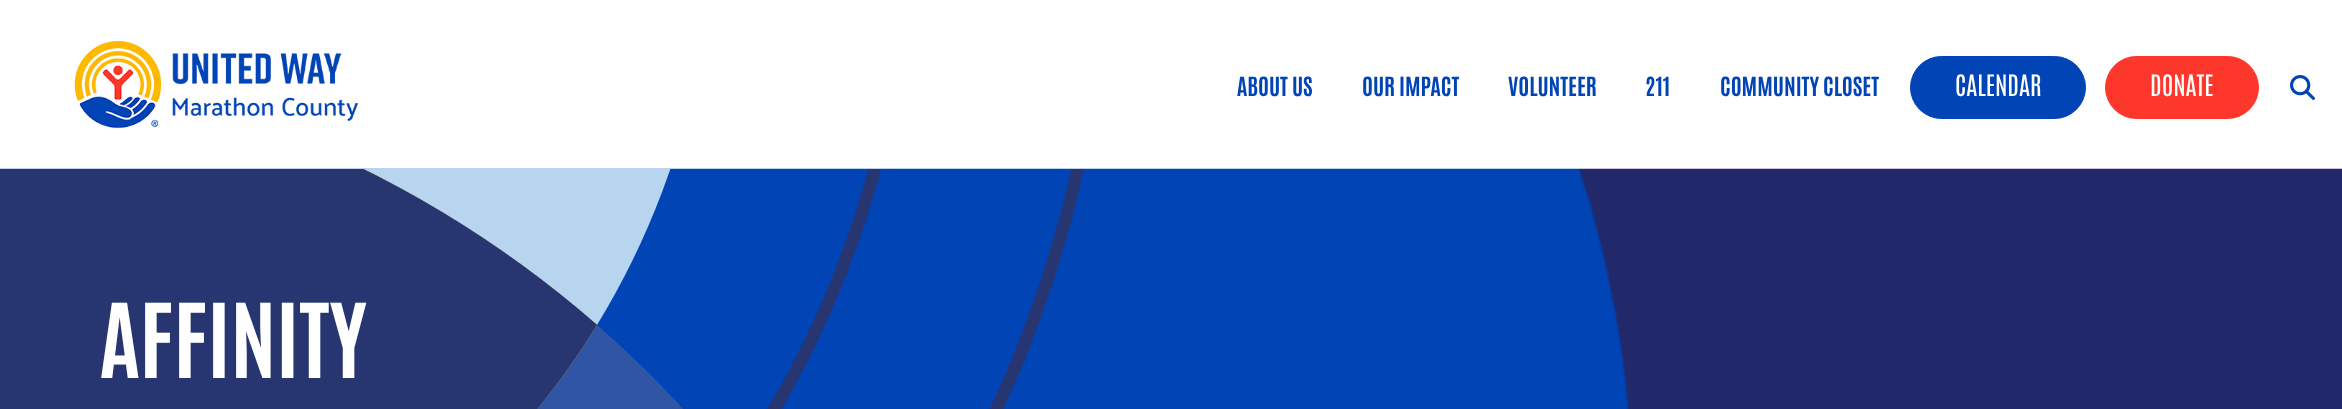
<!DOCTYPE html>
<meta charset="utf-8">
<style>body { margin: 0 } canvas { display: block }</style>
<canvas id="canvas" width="2342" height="409"></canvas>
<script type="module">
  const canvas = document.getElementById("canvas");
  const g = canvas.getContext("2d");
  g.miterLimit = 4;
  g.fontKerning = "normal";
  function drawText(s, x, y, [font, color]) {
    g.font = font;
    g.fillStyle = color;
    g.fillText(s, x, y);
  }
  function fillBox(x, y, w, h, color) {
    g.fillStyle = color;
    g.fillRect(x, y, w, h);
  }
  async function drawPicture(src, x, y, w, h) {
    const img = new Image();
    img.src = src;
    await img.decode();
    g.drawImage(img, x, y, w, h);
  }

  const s1 = ["bold 22.5px Antonio", "#0044B5"];
  const s2 = ["25px Antonio", "#FFFFFF"];
  const s3 = ["bold 87.5px Antonio", "#FFFFFF"];

  fillBox(0, 0, 2342, 409, "#FFFFFF");
  await drawPicture("pic1.png", 74, 40, 284, 89);
  drawText("ABOUT US", 1237, 96, s1);
  drawText("OUR IMPACT", 1362, 96, s1);
  drawText("VOLUNTEER", 1508, 96, s1);
  drawText("211", 1645, 96, s1);
  drawText("COMMUNITY CLOSET", 1720, 96, s1);
  g.beginPath();
  g.roundRect(1910.5, 56.5, 175, 62, 31);
  g.fill();
  g.strokeStyle = "#0044B5";
  g.stroke();
  drawText("CALENDAR", 1955, 96, s2);
  g.fillStyle = "#FD372C";
  g.beginPath();
  g.roundRect(2105.5, 56.5, 153, 62, 31);
  g.fill();
  g.strokeStyle = "#FD372C";
  g.stroke();
  drawText("DONATE", 2150, 96, s2);
  await drawPicture("pic2.png", 2290, 75, 25, 25);
  await drawPicture("pic3.png", 0, 168, 2342, 241);
  await drawPicture("pic4.png", 0, 169, 1084, 240);
  drawText("AFFINITY", 100, 378, s3);
</script>
